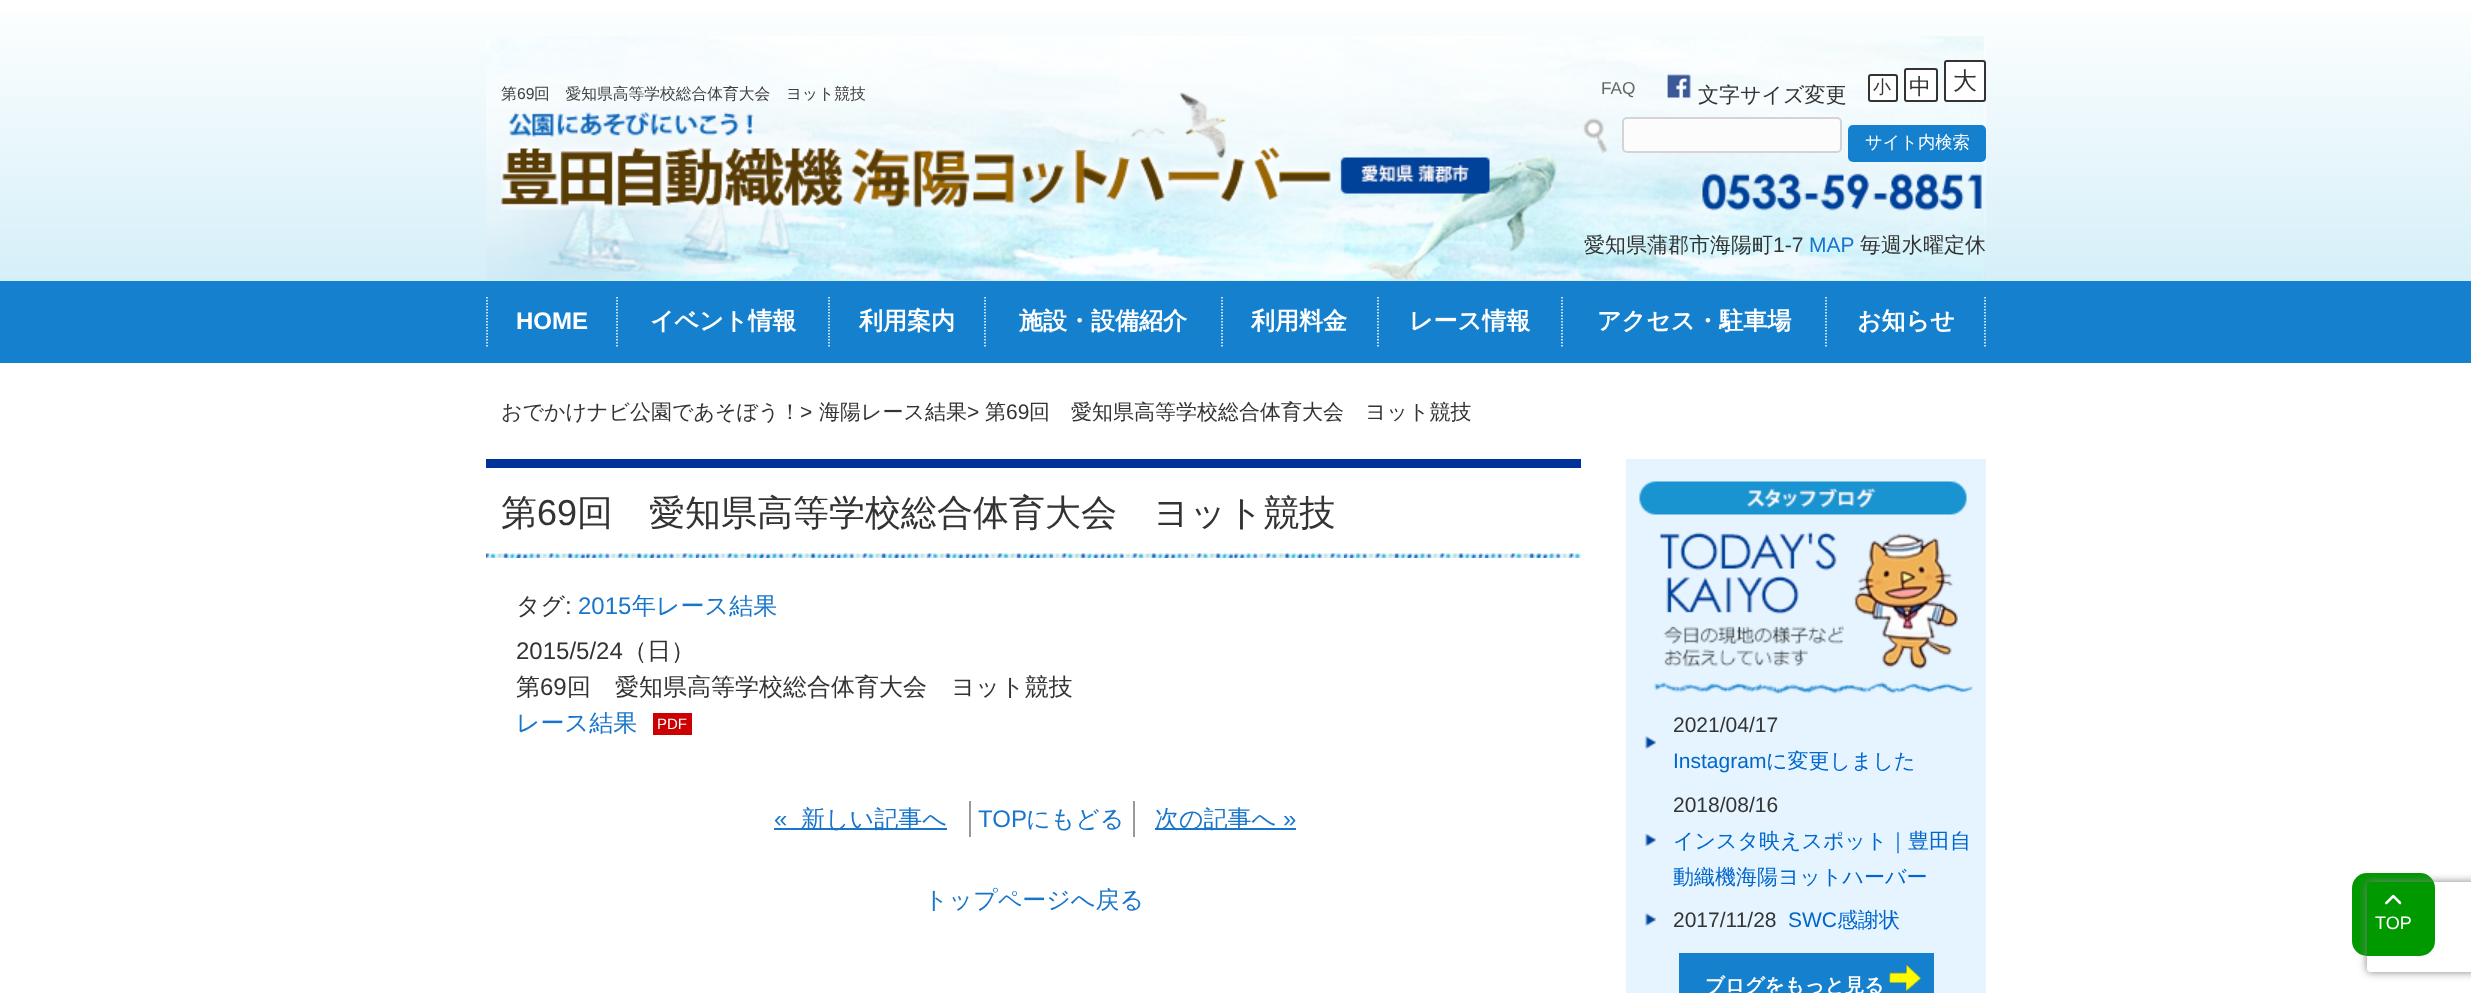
<!DOCTYPE html>
<meta charset="utf-8">
<style>body { margin: 0 } canvas { display: block }</style>
<canvas id="canvas" width="2471" height="993"></canvas>
<script type="module">
  const canvas = document.getElementById("canvas");
  const g = canvas.getContext("2d");
  g.miterLimit = 4;
  g.fontKerning = "normal";
  function drawText(s, x, y, [font, color]) {
    g.font = font;
    g.fillStyle = color;
    g.fillText(s, x, y);
  }
  function fillBox(x, y, w, h, color) {
    g.fillStyle = color;
    g.fillRect(x, y, w, h);
  }
  function fillRounded(x, y, w, h, r, color) {
    g.fillStyle = color;
    g.beginPath();
    g.roundRect(x, y, w, h, r);
    g.fill();
  }
  async function drawPicture(src, x, y, w, h) {
    const img = new Image();
    img.src = src;
    await img.decode();
    g.drawImage(img, x, y, w, h);
  }
  let gradient;

  const s1 = ["500 15.75px WenQuanYi Zen Hei", "#404040"];
  const s2 = ["15.75px Liberation Sans", "#404040"];
  const s3 = ["17.25px Liberation Sans", "#626861"];
  const s4 = ["500 21px WenQuanYi Zen Hei", "#333333"];
  const s5 = ["500 18px WenQuanYi Zen Hei", "#333333"];
  const s6 = ["500 22px WenQuanYi Zen Hei", "#333333"];
  const s7 = ["500 24px WenQuanYi Zen Hei", "#333333"];
  const s8 = ["500 17.25px WenQuanYi Zen Hei", "#FFFFFF"];
  const s9 = ["21px Liberation Sans", "#333333"];
  const s10 = ["21px Liberation Sans", "#1975CA"];
  const s11 = ["bold 24px Liberation Sans", "#FFFFFF"];
  const s12 = ["bold 24px WenQuanYi Zen Hei", "#FFFFFF"];
  const s13 = ["500 36px WenQuanYi Zen Hei", "#333333"];
  const s14 = ["36px Liberation Sans", "#333333"];
  const s15 = ["24px Liberation Sans", "#333333"];
  const s16 = ["24px Liberation Sans", "#1975CA"];
  const s17 = ["500 24px WenQuanYi Zen Hei", "#1975CA"];
  const s18 = ["15px Liberation Sans", "#FFFFFF"];
  const s19 = ["21px Liberation Sans", "#0066CC"];
  const s20 = ["500 21px WenQuanYi Zen Hei", "#0066CC"];
  const s21 = ["bold 19.5px WenQuanYi Zen Hei", "#FFFFFF"];
  const s22 = ["18px Liberation Sans", "#FFFFFF"];

  fillBox(0, 0, 2471, 993, "#FFFFFF");
  gradient = g.createLinearGradient(1236, 0, 1236, 281);
  gradient.addColorStop(0, "#FEFFFF");
  gradient.addColorStop(1, "#D5EFF8");
  g.fillStyle = gradient;
  g.fillRect(0, 10, 2471, 271);
  await drawPicture("pic1.png", 486, 36, 1500, 245);
  drawText("第", 501, 99, s1);
  drawText("69", 517, 99, s2);
  drawText("回　愛知県高等学校総合体育大会　ヨット競技", 534, 99, s1);
  await drawPicture("pic2.png", 501, 112, 989, 98);
  drawText("FAQ", 1601, 94, s3);
  await drawPicture("pic3.png", 1667, 74, 24, 24);
  drawText("文字サイズ変更", 1698, 102, s4);
  g.fillStyle = "#FFFFFF";
  g.beginPath();
  g.roundRect(1869, 75, 28, 26, 2);
  g.fill();
  g.strokeStyle = "#333333";
  g.lineWidth = 2;
  g.stroke();
  drawText("小", 1873, 93, s5);
  g.fillStyle = "#FFFFFF";
  g.beginPath();
  g.roundRect(1905, 69, 32, 32, 2);
  g.fill();
  g.stroke();
  drawText("中", 1909, 94, s6);
  g.fillStyle = "#FFFFFF";
  g.beginPath();
  g.roundRect(1945, 61, 40, 40, 2);
  g.fill();
  g.stroke();
  drawText("大", 1953, 89, s7);
  await drawPicture("pic4.png", 1583, 118, 24, 35);
  g.fillStyle = "#FCFCFC";
  g.beginPath();
  g.roundRect(1623, 118, 218, 34, 4);
  g.fill();
  g.strokeStyle = "#D4D4D7";
  g.stroke();
  fillRounded(1848, 125, 138, 37, 5, "#1581CE");
  drawText("サイト内検索", 1865, 148, s8);
  await drawPicture("pic5.png", 1702, 173, 280, 38);
  drawText("愛知県蒲郡市海陽町", 1584, 252, s4);
  drawText("1-7", 1773, 252, s9);
  drawText("MAP", 1809, 252, s10);
  drawText("毎週水曜定休", 1860, 252, s4);
  fillBox(0, 281, 2471, 82, "#1581CE");
  g.beginPath();
  g.moveTo(487, 297);
  g.lineTo(487, 348);
  g.strokeStyle = "#FFFFFF";
  g.lineWidth = 1.5;
  g.setLineDash([1.5, 1.5]);
  g.stroke();
  drawText("HOME", 516, 329, s11);
  g.beginPath();
  g.moveTo(617, 297);
  g.lineTo(617, 348);
  g.stroke();
  drawText("イベント情報", 650, 329, s12);
  g.beginPath();
  g.moveTo(829, 297);
  g.lineTo(829, 348);
  g.stroke();
  drawText("利用案内", 859, 329, s12);
  g.beginPath();
  g.moveTo(985, 297);
  g.lineTo(985, 348);
  g.stroke();
  drawText("施設・設備紹介", 1019, 329, s12);
  g.beginPath();
  g.moveTo(1222, 297);
  g.lineTo(1222, 348);
  g.stroke();
  drawText("利用料金", 1251, 329, s12);
  g.beginPath();
  g.moveTo(1378, 297);
  g.lineTo(1378, 348);
  g.stroke();
  drawText("レース情報", 1409, 329, s12);
  g.beginPath();
  g.moveTo(1562, 297);
  g.lineTo(1562, 348);
  g.stroke();
  drawText("アクセス・駐車場", 1597, 329, s12);
  g.beginPath();
  g.moveTo(1985, 297);
  g.lineTo(1985, 348);
  g.stroke();
  g.beginPath();
  g.moveTo(1826, 297);
  g.lineTo(1826, 348);
  g.stroke();
  drawText("お知らせ", 1857, 329, s12);
  drawText("おでかけナビ公園であそぼう！", 501, 419, s4);
  drawText(">", 800, 419, s9);
  drawText("海陽レース結果", 819, 419, s4);
  drawText(">", 967, 419, s9);
  drawText("第", 985, 419, s4);
  drawText("69", 1006, 419, s9);
  drawText("回　愛知県高等学校総合体育大会　ヨット競技", 1029, 419, s4);
  await drawPicture("pic6.png", 486, 553, 1095, 5);
  fillBox(486, 459, 1095, 9, "#003399");
  drawText("第", 501, 525, s13);
  drawText("69", 537, 525, s14);
  drawText("回　愛知県高等学校総合体育大会　ヨット競技", 577, 525, s13);
  drawText("タグ", 516, 614, s7);
  drawText(":", 565, 614, s15);
  drawText("2015", 578, 614, s16);
  drawText("年レース結果", 632, 614, s17);
  drawText("2015/5/24", 516, 659, s15);
  drawText("（日）", 623, 659, s7);
  drawText("第", 516, 695, s7);
  drawText("69", 540, 695, s15);
  drawText("回　愛知県高等学校総合体育大会　ヨット競技", 567, 695, s7);
  drawText("レース結果", 516, 731, s17);
  fillBox(653, 713, 39, 22, "#CC0000");
  drawText("PDF", 657, 729, s18);
  drawText("«", 774, 827, s16);
  fillBox(774, 828, 173, 2, "#1975CA");
  drawText("新しい記事へ", 801, 827, s17);
  fillBox(1133, 801, 2, 36, "#999999");
  fillBox(969, 801, 2, 36, "#999999");
  drawText("TOP", 978, 827, s16);
  drawText("にもどる", 1026, 827, s17);
  fillBox(1155, 828, 141, 2, "#1975CA");
  drawText("次の記事へ", 1155, 827, s17);
  drawText("»", 1283, 827, s16);
  drawText("トップページへ戻る", 924, 908, s17);
  fillBox(1626, 459, 360, 534, "#E5F4FF");
  await drawPicture("pic7.png", 1639, 481, 334, 213);
  await drawPicture("pic8.png", 1645, 736, 11, 13);
  drawText("2021/04/17", 1673, 732, s9);
  drawText("Instagram", 1673, 768, s19);
  drawText("に変更しました", 1766, 768, s20);
  await drawPicture("pic9.png", 1645, 834, 11, 12);
  drawText("2018/08/16", 1673, 812, s9);
  drawText("インスタ映えスポット｜豊田自", 1673, 848, s20);
  drawText("動織機海陽ヨットハーバー", 1673, 884, s20);
  await drawPicture("pic8.png", 1645, 913, 11, 13);
  drawText("2017/11/28", 1673, 927, s9);
  drawText("SWC", 1788, 927, s19);
  drawText("感謝状", 1837, 927, s20);
  fillBox(1679, 953, 255, 40, "#1581CE");
  await drawPicture("pic10.png", 1889, 964, 32, 28);
  drawText("ブログをもっと見る", 1705, 992, s21);
  fillRounded(2352, 873, 83, 83, 15, "#009900");
  await drawPicture("pic11.png", 2385, 894, 17, 11);
  g.save();
  g.beginPath();
  g.moveTo(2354, 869);
  g.lineTo(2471, 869);
  g.lineTo(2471, 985);
  g.lineTo(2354, 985);
  g.closePath();
  g.moveTo(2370, 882);
  g.lineTo(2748, 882);
  g.bezierCurveTo(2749.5, 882, 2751, 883.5, 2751, 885);
  g.lineTo(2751, 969);
  g.bezierCurveTo(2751, 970.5, 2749.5, 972, 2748, 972);
  g.lineTo(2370, 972);
  g.bezierCurveTo(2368.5, 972, 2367, 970.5, 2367, 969);
  g.lineTo(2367, 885);
  g.bezierCurveTo(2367, 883.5, 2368.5, 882, 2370, 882);
  g.closePath();
  g.clip("evenodd");
  g.fillStyle = "#808080";
  g.filter = "blur(4px)";
  g.beginPath();
  g.roundRect(2367, 882, 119, 90, 3);
  g.fill();
  g.filter = "none";
  g.restore();
  drawText("TOP", 2375, 929, s22);
</script>
